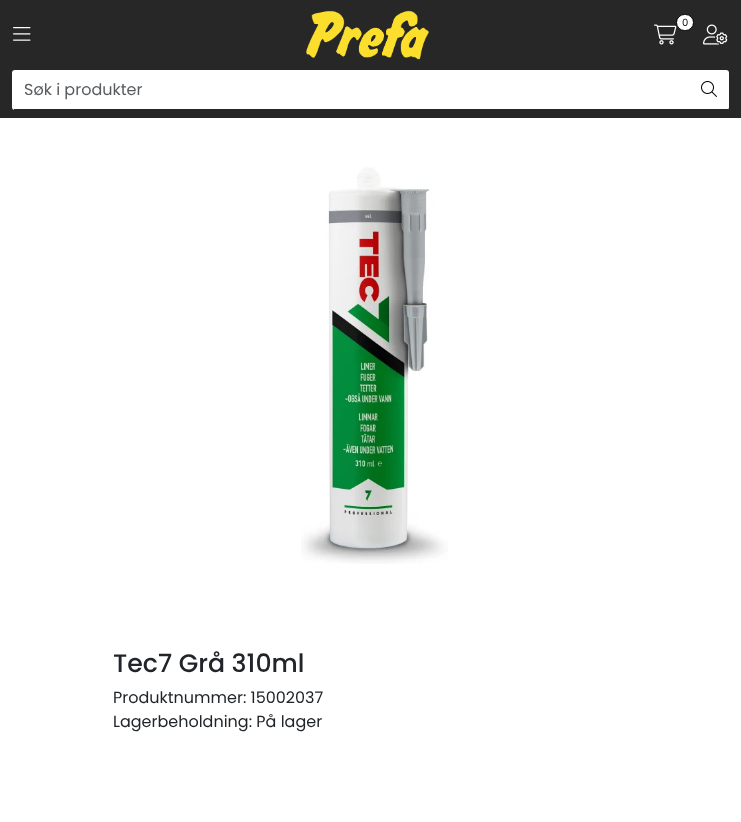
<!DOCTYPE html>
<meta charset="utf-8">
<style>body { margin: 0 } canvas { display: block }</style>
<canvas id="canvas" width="741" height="822"></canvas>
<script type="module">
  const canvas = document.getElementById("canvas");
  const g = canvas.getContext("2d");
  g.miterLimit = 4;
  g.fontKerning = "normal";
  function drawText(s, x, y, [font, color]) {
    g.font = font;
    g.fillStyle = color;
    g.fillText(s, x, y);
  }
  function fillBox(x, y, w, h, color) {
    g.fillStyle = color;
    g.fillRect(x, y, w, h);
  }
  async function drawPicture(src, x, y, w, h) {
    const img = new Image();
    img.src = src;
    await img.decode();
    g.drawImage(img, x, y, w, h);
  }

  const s1 = ["10px Poppins", "#000000"];
  const s2 = ["16px Poppins", "#595C5F"];
  const s3 = ["500 25.25px Poppins", "#212529"];
  const s4 = ["16px Poppins", "#212529"];

  fillBox(0, 0, 741, 822, "#FFFFFF");
  fillBox(0, 0, 741, 118, "#272727");
  await drawPicture("pic1.png", 306, 10, 123, 50);
  await drawPicture("pic2.png", 654, 24, 23, 21);
  g.fillStyle = "#FFFFFF";
  g.beginPath();
  g.roundRect(676.5, 14.5, 17, 16, 8);
  g.fill();
  g.strokeStyle = "#000000";
  g.stroke();
  drawText("0", 682, 26, s1);
  await drawPicture("pic3.png", 703, 24, 25, 21);
  await drawPicture("pic4.png", 13, 27, 18, 14);
  g.fillStyle = "#FFFFFF";
  g.beginPath();
  g.roundRect(12, 70, 678, 40, [3, 0, 0, 3]);
  g.fill();
  fillBox(14, 109, 676, 1, "#272727");
  drawText("Søk i produkter", 24, 95, s2);
  g.fillStyle = "#FFFFFF";
  g.beginPath();
  g.roundRect(689, 70, 40, 40, [0, 3, 3, 0]);
  g.fill();
  fillBox(689, 109, 39, 1, "#272727");
  await drawPicture("pic5.png", 701, 81, 16, 16);
  await drawPicture("pic6.png", 301, 167, 147, 397);
  drawText("Tec7 Grå 310ml", 113, 672, s3);
  drawText("Produktnummer: 15002037", 113, 703, s4);
  drawText("Lagerbeholdning: På lager", 113, 727, s4);
</script>
